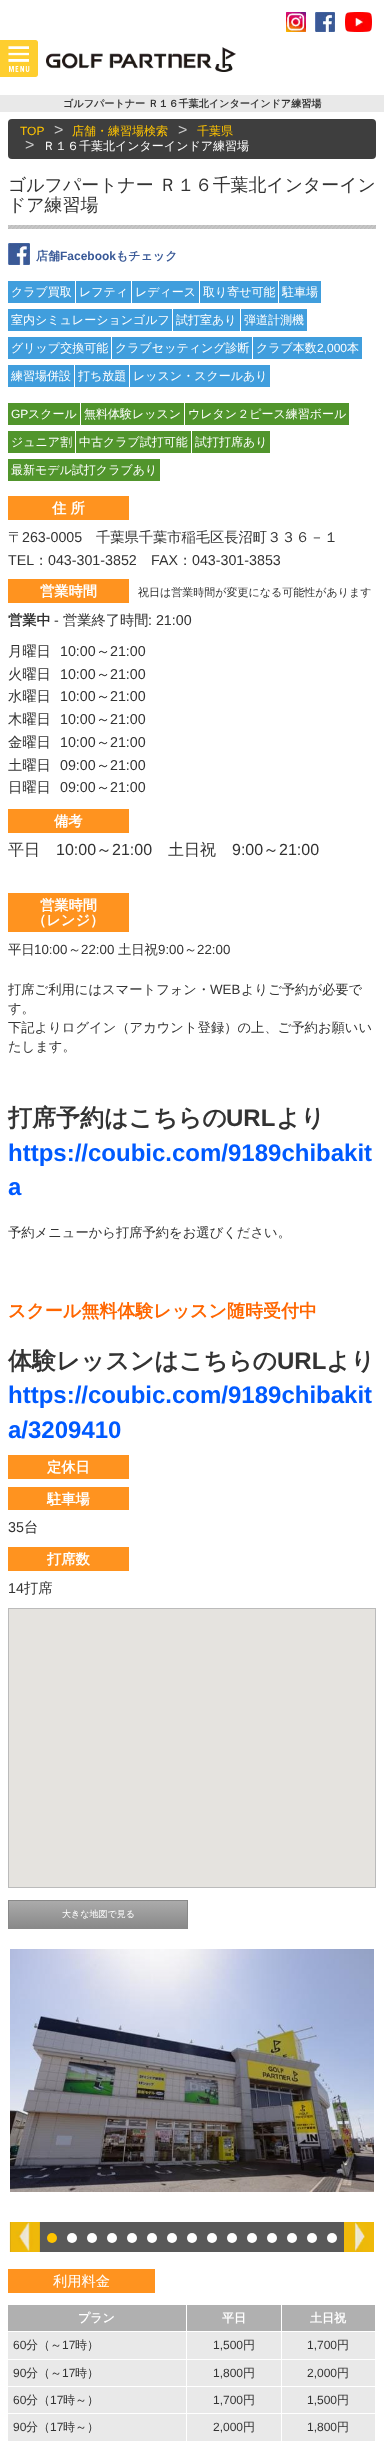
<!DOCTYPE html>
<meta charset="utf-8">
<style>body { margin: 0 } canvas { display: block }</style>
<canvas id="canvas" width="384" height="2449"></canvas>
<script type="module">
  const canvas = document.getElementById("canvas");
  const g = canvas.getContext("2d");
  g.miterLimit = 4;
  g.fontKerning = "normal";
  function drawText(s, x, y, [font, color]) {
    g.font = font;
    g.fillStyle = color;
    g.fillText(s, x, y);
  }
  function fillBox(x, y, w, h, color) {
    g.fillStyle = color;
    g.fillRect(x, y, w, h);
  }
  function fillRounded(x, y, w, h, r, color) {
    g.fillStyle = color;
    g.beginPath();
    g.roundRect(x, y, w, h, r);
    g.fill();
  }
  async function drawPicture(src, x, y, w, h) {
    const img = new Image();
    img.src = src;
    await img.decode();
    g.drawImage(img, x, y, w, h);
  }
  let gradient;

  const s1 = ["bold 10.1px WenQuanYi Zen Hei", "#333333"];
  const s2 = ["12px Liberation Sans", "#FFC400"];
  const s3 = ["16px Liberation Sans", "#CCCCCC"];
  const s4 = ["500 12px WenQuanYi Zen Hei", "#FFC400"];
  const s5 = ["500 12px WenQuanYi Zen Hei", "#FFFFFF"];
  const s6 = ["500 17.9px WenQuanYi Zen Hei", "#333333"];
  const s7 = ["bold 12px WenQuanYi Zen Hei", "#3A5A98"];
  const s8 = ["bold 12px Liberation Sans", "#3A5A98"];
  const s9 = ["12px Liberation Sans", "#FFFFFF"];
  const s10 = ["bold 14.25px WenQuanYi Zen Hei", "#FFFFFF"];
  const s11 = ["500 14.25px WenQuanYi Zen Hei", "#333333"];
  const s12 = ["14.25px Liberation Sans", "#333333"];
  const s13 = ["500 11px WenQuanYi Zen Hei", "#333333"];
  const s14 = ["bold 14.25px WenQuanYi Zen Hei", "#333333"];
  const s15 = ["500 16px WenQuanYi Zen Hei", "#333333"];
  const s16 = ["16px Liberation Sans", "#333333"];
  const s17 = ["500 13.3px WenQuanYi Zen Hei", "#333333"];
  const s18 = ["13.3px Liberation Sans", "#333333"];
  const s19 = ["bold 24px WenQuanYi Zen Hei", "#333333"];
  const s20 = ["bold 24px Liberation Sans", "#333333"];
  const s21 = ["bold 24px Liberation Sans", "#005AFF"];
  const s22 = ["bold 18px WenQuanYi Zen Hei", "#FF6600"];
  const s23 = ["500 9px WenQuanYi Zen Hei", "#FFFFFF"];
  const s24 = ["500 14.25px WenQuanYi Zen Hei", "#FFFFFF"];
  const s25 = ["bold 12px WenQuanYi Zen Hei", "#FFFFFF"];
  const s26 = ["12px Liberation Sans", "#333333"];
  const s27 = ["500 12px WenQuanYi Zen Hei", "#333333"];

  fillBox(0, 0, 384, 2449, "#FFFFFF");
  await drawPicture("pic1.png", 286, 12, 20, 20);
  await drawPicture("pic2.png", 315, 12, 20, 20);
  await drawPicture("pic3.png", 345, 12, 27, 20);
  await drawPicture("pic4.png", 0, 40, 38, 37);
  await drawPicture("pic5.png", 46, 47, 190, 25);
  fillBox(0, 95, 384, 17, "#E9E9E9");
  drawText("ゴルフパートナー Ｒ１６千葉北インターインドア練習場", 63, 107, s1);
  fillRounded(8, 119, 368, 40, 4, "#3E3E3E");
  drawText("TOP", 20, 135, s2);
  drawText(">", 54, 135, s3);
  drawText("店舗・練習場検索", 72, 135, s4);
  drawText(">", 178, 135, s3);
  drawText("千葉県", 197, 135, s4);
  drawText(">", 25, 150, s3);
  drawText("Ｒ１６千葉北インターインドア練習場", 43, 150, s5);
  await drawPicture("pic6.png", 8, 225, 368, 4);
  drawText("ゴルフパートナー Ｒ１６千葉北インターイン", 8, 191, s6);
  drawText("ドア練習場", 8, 211, s6);
  await drawPicture("pic7.png", 8, 243, 22, 22);
  drawText("店舗", 36, 260, s7);
  drawText("Facebook", 60, 260, s8);
  drawText("もチェック", 116, 260, s7);
  fillBox(8, 281, 67, 22, "#409EDD");
  drawText("クラブ買取", 11, 296, s5);
  fillBox(76, 281, 55, 22, "#409EDD");
  drawText("レフティ", 79, 296, s5);
  fillBox(132, 281, 67, 22, "#409EDD");
  drawText("レディース", 135, 296, s5);
  fillBox(200, 281, 78, 22, "#409EDD");
  drawText("取り寄せ可能", 203, 296, s5);
  fillBox(279, 281, 42, 22, "#409EDD");
  drawText("駐車場", 282, 296, s5);
  fillBox(8, 309, 164, 22, "#409EDD");
  drawText("室内シミュレーションゴルフ", 11, 324, s5);
  fillBox(173, 309, 67, 22, "#409EDD");
  drawText("試打室あり", 176, 324, s5);
  fillBox(241, 309, 66, 22, "#409EDD");
  drawText("弾道計測機", 244, 324, s5);
  fillBox(8, 337, 103, 22, "#409EDD");
  drawText("グリップ交換可能", 11, 352, s5);
  fillBox(112, 337, 140, 22, "#409EDD");
  drawText("クラブセッティング診断", 115, 352, s5);
  fillBox(253, 337, 109, 22, "#409EDD");
  drawText("クラブ本数", 256, 352, s5);
  drawText("2,000", 317, 352, s9);
  drawText("本", 347, 352, s5);
  fillBox(8, 365, 66, 22, "#409EDD");
  drawText("練習場併設", 11, 380, s5);
  fillBox(75, 365, 54, 22, "#409EDD");
  drawText("打ち放題", 78, 380, s5);
  fillBox(130, 365, 140, 22, "#409EDD");
  drawText("レッスン・スクールあり", 133, 380, s5);
  fillBox(8, 403, 72, 22, "#51952C");
  drawText("GP", 11, 418, s9);
  drawText("スクール", 28, 418, s5);
  fillBox(81, 403, 103, 22, "#51952C");
  drawText("無料体験レッスン", 84, 418, s5);
  fillBox(185, 403, 164, 22, "#51952C");
  drawText("ウレタン２ピース練習ボール", 188, 418, s5);
  fillBox(8, 431, 67, 22, "#51952C");
  drawText("ジュニア割", 11, 446, s5);
  fillBox(76, 431, 115, 22, "#51952C");
  drawText("中古クラブ試打可能", 79, 446, s5);
  fillBox(192, 431, 78, 22, "#51952C");
  drawText("試打打席あり", 195, 446, s5);
  fillBox(8, 459, 152, 22, "#51952C");
  drawText("最新モデル試打クラブあり", 11, 474, s5);
  fillBox(8, 496, 121, 24, "#FF931F");
  drawText("住 所", 52, 513, s10);
  drawText("〒", 8, 542, s11);
  drawText("263-0005", 22, 542, s12);
  drawText("千葉県千葉市稲毛区長沼町３３６－１", 96, 542, s11);
  drawText("TEL", 8, 565, s12);
  drawText("：", 34, 565, s11);
  drawText("043-301-3852", 48, 565, s12);
  drawText("FAX", 151, 565, s12);
  drawText("：", 178, 565, s11);
  drawText("043-301-3853", 192, 565, s12);
  fillBox(8, 579, 121, 24, "#FF931F");
  drawText("営業時間", 40, 596, s10);
  drawText("祝日は営業時間が変更になる可能性があります", 138, 596, s13);
  drawText("営業中", 8, 625, s14);
  drawText("-", 54, 625, s12);
  drawText("営業終了時間", 63, 625, s11);
  drawText(": 21:00", 148, 625, s12);
  drawText("月曜日", 8, 656, s11);
  drawText("10:00", 60, 656, s12);
  drawText("～", 96, 656, s11);
  drawText("21:00", 110, 656, s12);
  drawText("火曜日", 8, 679, s11);
  drawText("10:00", 60, 679, s12);
  drawText("～", 96, 679, s11);
  drawText("21:00", 110, 679, s12);
  drawText("水曜日", 8, 701, s11);
  drawText("10:00", 60, 701, s12);
  drawText("～", 96, 701, s11);
  drawText("21:00", 110, 701, s12);
  drawText("木曜日", 8, 724, s11);
  drawText("10:00", 60, 724, s12);
  drawText("～", 96, 724, s11);
  drawText("21:00", 110, 724, s12);
  drawText("金曜日", 8, 747, s11);
  drawText("10:00", 60, 747, s12);
  drawText("～", 96, 747, s11);
  drawText("21:00", 110, 747, s12);
  drawText("土曜日", 8, 770, s11);
  drawText("09:00", 60, 770, s12);
  drawText("～", 96, 770, s11);
  drawText("21:00", 110, 770, s12);
  drawText("日曜日", 8, 792, s11);
  drawText("09:00", 60, 792, s12);
  drawText("～", 96, 792, s11);
  drawText("21:00", 110, 792, s12);
  fillBox(8, 809, 121, 24, "#FF931F");
  drawText("備考", 54, 826, s10);
  drawText("平日", 8, 855, s15);
  drawText("10:00", 56, 855, s16);
  drawText("～", 96, 855, s15);
  drawText("21:00", 112, 855, s16);
  drawText("土日祝", 168, 855, s15);
  drawText("9:00", 232, 855, s16);
  drawText("～", 263, 855, s15);
  drawText("21:00", 279, 855, s16);
  fillBox(8, 893, 121, 39, "#FF931F");
  drawText("営業時間", 40, 910, s10);
  drawText("（レンジ）", 32, 925, s10);
  drawText("平日", 8, 954, s17);
  drawText("10:00", 34, 954, s18);
  drawText("～", 68, 954, s17);
  drawText("22:00", 81, 954, s18);
  drawText("土日祝", 118, 954, s17);
  drawText("9:00", 158, 954, s18);
  drawText("～", 184, 954, s17);
  drawText("22:00", 197, 954, s18);
  drawText("打席ご利用にはスマートフォン・", 8, 994, s17);
  drawText("WEB", 210, 994, s18);
  drawText("よりご予約が必要で", 241, 994, s17);
  drawText("す。", 8, 1013, s17);
  drawText("下記よりログイン（アカウント登録）の上、ご予約お願いい", 8, 1032, s17);
  drawText("たします。", 8, 1051, s17);
  drawText("打席予約はこちらの", 8, 1126, s19);
  drawText("URL", 226, 1126, s20);
  drawText("より", 276, 1126, s19);
  drawText("https://coubic.com/9189chibakit", 8, 1161, s21);
  drawText("a", 8, 1195, s21);
  drawText("予約メニューから打席予約をお選びください。", 8, 1237, s17);
  drawText("スクール無料体験レッスン随時受付中", 8, 1317, s22);
  drawText("体験レッスンはこちらの", 8, 1369, s19);
  drawText("URL", 277, 1369, s20);
  drawText("より", 326, 1369, s19);
  drawText("https://coubic.com/9189chibakit", 8, 1403, s21);
  drawText("a/3209410", 8, 1438, s21);
  fillBox(8, 1455, 121, 24, "#FF931F");
  drawText("定休日", 47, 1472, s10);
  fillBox(8, 1487, 121, 23, "#FF931F");
  drawText("駐車場", 47, 1504, s10);
  drawText("35", 8, 1532, s12);
  drawText("台", 24, 1532, s11);
  fillBox(8, 1547, 121, 24, "#FF931F");
  drawText("打席数", 47, 1564, s10);
  drawText("14", 8, 1593, s12);
  drawText("打席", 24, 1593, s11);
  g.strokeStyle = "#BBBBBB";
  g.strokeRect(8.5, 1608.5, 367, 279);
  fillBox(9, 1609, 366, 278, "#E5E3DF");
  gradient = g.createLinearGradient(98, 1901, 98, 1928);
  gradient.addColorStop(0, "#ABABAB");
  gradient.addColorStop(1, "#898989");
  g.fillStyle = gradient;
  g.fillRect(9, 1901, 178, 27);
  g.strokeStyle = "#898989";
  g.strokeRect(8.5, 1900.5, 179, 28);
  drawText("大きな地図で見る", 62, 1917, s23);
  await drawPicture("pic8.png", 10, 1949, 364, 243);
  fillBox(10, 2222, 364, 30, "#595959");
  await drawPicture("pic9.png", 9, 2222, 31, 30);
  await drawPicture("pic10.png", 344, 2222, 30, 30);
  g.fillStyle = "#FFC400";
  g.beginPath();
  g.arc(52, 2238, 5, 0, Math.PI * 2);
  g.fill();
  g.fillStyle = "#FFFFFF";
  g.beginPath();
  g.arc(72, 2238, 5, 0, Math.PI * 2);
  g.fill();
  g.beginPath();
  g.arc(92, 2238, 5, 0, Math.PI * 2);
  g.fill();
  g.beginPath();
  g.arc(112, 2238, 5, 0, Math.PI * 2);
  g.fill();
  g.beginPath();
  g.arc(132, 2238, 5, 0, Math.PI * 2);
  g.fill();
  g.beginPath();
  g.arc(152, 2238, 5, 0, Math.PI * 2);
  g.fill();
  g.beginPath();
  g.arc(172, 2238, 5, 0, Math.PI * 2);
  g.fill();
  g.beginPath();
  g.arc(192, 2238, 5, 0, Math.PI * 2);
  g.fill();
  g.beginPath();
  g.arc(212, 2238, 5, 0, Math.PI * 2);
  g.fill();
  g.beginPath();
  g.arc(232, 2238, 5, 0, Math.PI * 2);
  g.fill();
  g.beginPath();
  g.arc(252, 2238, 5, 0, Math.PI * 2);
  g.fill();
  g.beginPath();
  g.arc(272, 2238, 5, 0, Math.PI * 2);
  g.fill();
  g.beginPath();
  g.arc(292, 2238, 5, 0, Math.PI * 2);
  g.fill();
  g.beginPath();
  g.arc(312, 2238, 5, 0, Math.PI * 2);
  g.fill();
  g.beginPath();
  g.arc(332, 2238, 5, 0, Math.PI * 2);
  g.fill();
  fillBox(8, 2269, 147, 24, "#FF931F");
  drawText("利用料金", 53, 2286, s24);
  fillBox(8, 2305, 178, 26, "#B0B0B0");
  drawText("プラン", 78, 2322, s25);
  fillBox(187, 2305, 94, 26, "#B0B0B0");
  drawText("平日", 222, 2322, s25);
  fillBox(282, 2305, 93, 26, "#B0B0B0");
  drawText("土日祝", 310, 2322, s25);
  fillBox(8, 2332, 178, 27, "#E9E9E9");
  drawText("60", 13, 2349, s26);
  drawText("分（～", 26, 2349, s27);
  drawText("17", 62, 2349, s26);
  drawText("時）", 75, 2349, s27);
  fillBox(187, 2332, 94, 27, "#E9E9E9");
  drawText("1,500", 213, 2349, s26);
  drawText("円", 243, 2349, s27);
  fillBox(282, 2332, 93, 27, "#E9E9E9");
  drawText("1,700", 307, 2349, s26);
  drawText("円", 337, 2349, s27);
  fillBox(8, 2360, 178, 26, "#E9E9E9");
  drawText("90", 13, 2377, s26);
  drawText("分（～", 26, 2377, s27);
  drawText("17", 62, 2377, s26);
  drawText("時）", 75, 2377, s27);
  fillBox(187, 2360, 94, 26, "#E9E9E9");
  drawText("1,800", 213, 2377, s26);
  drawText("円", 243, 2377, s27);
  fillBox(282, 2360, 93, 26, "#E9E9E9");
  drawText("2,000", 307, 2377, s26);
  drawText("円", 337, 2377, s27);
  fillBox(8, 2387, 178, 26, "#E9E9E9");
  drawText("60", 13, 2404, s26);
  drawText("分（", 26, 2404, s27);
  drawText("17", 50, 2404, s26);
  drawText("時～）", 63, 2404, s27);
  fillBox(187, 2387, 94, 26, "#E9E9E9");
  drawText("1,700", 213, 2404, s26);
  drawText("円", 243, 2404, s27);
  fillBox(282, 2387, 93, 26, "#E9E9E9");
  drawText("1,500", 307, 2404, s26);
  drawText("円", 337, 2404, s27);
  fillBox(8, 2414, 178, 27, "#E9E9E9");
  drawText("90", 13, 2431, s26);
  drawText("分（", 26, 2431, s27);
  drawText("17", 50, 2431, s26);
  drawText("時～）", 63, 2431, s27);
  fillBox(187, 2414, 94, 27, "#E9E9E9");
  drawText("2,000", 213, 2431, s26);
  drawText("円", 243, 2431, s27);
  fillBox(282, 2414, 93, 27, "#E9E9E9");
  drawText("1,800", 307, 2431, s26);
  drawText("円", 337, 2431, s27);
</script>
